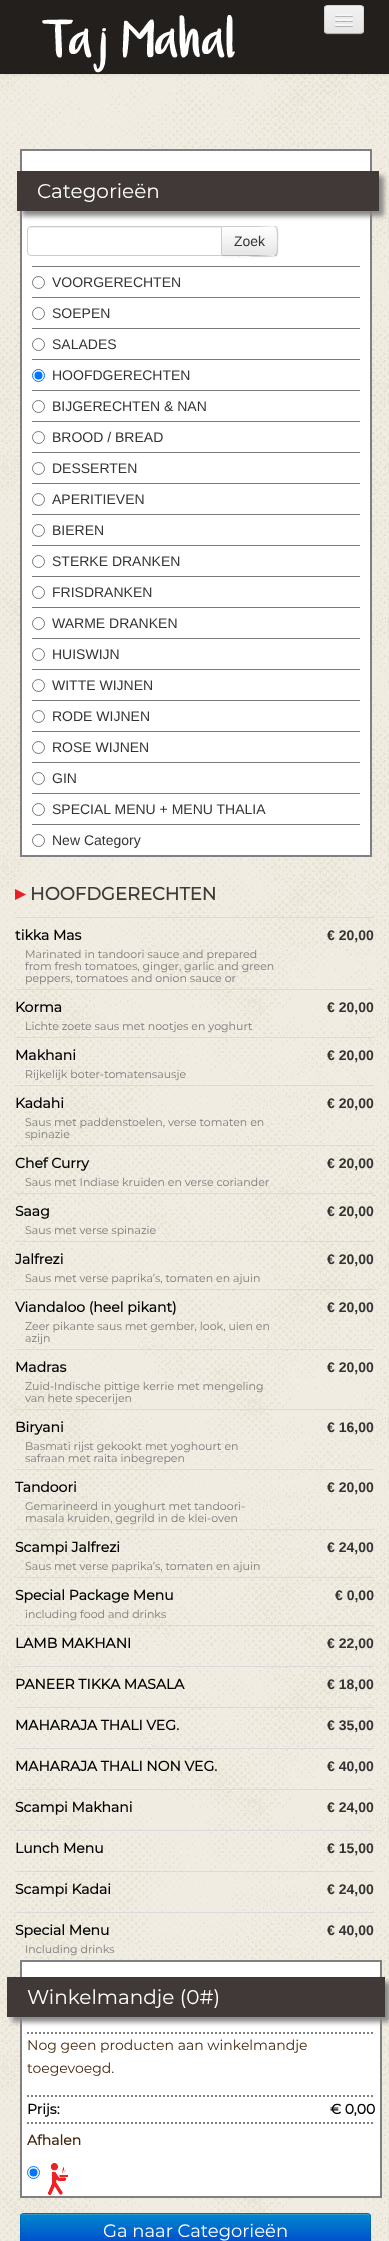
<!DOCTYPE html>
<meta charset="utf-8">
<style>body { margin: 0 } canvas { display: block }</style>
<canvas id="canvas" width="389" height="2241"></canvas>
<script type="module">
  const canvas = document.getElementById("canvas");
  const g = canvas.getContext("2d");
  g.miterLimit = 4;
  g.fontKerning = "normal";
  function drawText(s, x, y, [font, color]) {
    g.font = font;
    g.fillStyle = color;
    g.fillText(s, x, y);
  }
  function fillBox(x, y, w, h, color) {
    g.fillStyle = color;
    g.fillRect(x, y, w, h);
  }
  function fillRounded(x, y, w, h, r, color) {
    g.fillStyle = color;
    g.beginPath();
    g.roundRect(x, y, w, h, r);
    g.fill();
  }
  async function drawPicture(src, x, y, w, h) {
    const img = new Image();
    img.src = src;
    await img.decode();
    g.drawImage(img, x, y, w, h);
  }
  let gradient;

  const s1 = ["100 20px Montserrat", "#FFFFFF"];
  const s2 = ["14px Liberation Sans", "#333333"];
  const s3 = ["bold 18px Montserrat", "#413838"];
  const s4 = ["bold 14px Montserrat", "#000000"];
  const s5 = ["100 11px Montserrat", "#7A7A7A"];
  const s6 = ["bold 14px Liberation Sans", "#333333"];
  const s7 = ["100 14px Montserrat", "#44280D"];
  const s8 = ["bold 14px Montserrat", "#44280D"];
  const s9 = ["100 18px Montserrat", "#FFFFFF"];

  fillBox(0, 0, 389, 2241, "#FFFFFF");
  await drawPicture("pic1.png", 0, 74, 389, 2167);
  g.fillStyle = "rgba(0, 0, 0, 0.07)";
  g.filter = "blur(2px)";
  g.beginPath();
  g.rect(0, 1, 389, 74);
  g.fill();
  g.filter = "none";
  fillBox(0, 0, 389, 74, "#231F1C");
  await drawPicture("pic2.png", 42, 15, 193, 58);
  g.fillStyle = "#34302D";
  g.beginPath();
  g.moveTo(324, 30);
  g.bezierCurveTo(324, 36, 329, 35, 333, 35);
  g.lineTo(355, 35);
  g.bezierCurveTo(359, 35, 364, 36, 364, 30);
  g.bezierCurveTo(364, 32, 362, 34, 360, 34);
  g.lineTo(328, 34);
  g.bezierCurveTo(326, 34, 324, 32, 324, 30);
  g.closePath();
  g.fill();
  fillRounded(324, 5, 40, 29, 4, "#EDEDED");
  g.save();
  g.beginPath();
  g.roundRect(324, 5, 40, 29, 4);
  g.clip();
  gradient = g.createLinearGradient(344, 6, 344, 33);
  gradient.addColorStop(0, "#F2F2F2");
  gradient.addColorStop(1, "#E5E5E5");
  g.fillStyle = gradient;
  g.fillRect(324, 6, 40, 27);
  g.restore();
  g.beginPath();
  g.moveTo(362.5, 32.5);
  g.bezierCurveTo(362, 33, 361, 33.5, 360, 33.5);
  g.lineTo(328, 33.5);
  g.bezierCurveTo(327, 33.5, 326, 33, 325.5, 32.5);
  g.strokeStyle = "rgba(0, 0, 0, 0.25)";
  g.stroke();
  g.beginPath();
  g.moveTo(325.5, 32.5);
  g.bezierCurveTo(325, 32, 324.5, 31, 324.5, 30);
  g.lineTo(324.5, 9);
  g.bezierCurveTo(324.5, 8, 325, 7, 325.5, 6.5);
  g.bezierCurveTo(326, 6, 327, 5.5, 328, 5.5);
  g.lineTo(360, 5.5);
  g.bezierCurveTo(361, 5.5, 362, 6, 362.5, 6.5);
  g.bezierCurveTo(363, 7, 363.5, 8, 363.5, 9);
  g.lineTo(363.5, 30);
  g.bezierCurveTo(363.5, 31, 363, 32, 362.5, 32.5);
  g.strokeStyle = "rgba(0, 0, 0, 0.1)";
  g.stroke();
  g.fillStyle = "#B2B2B2";
  g.beginPath();
  g.moveTo(335, 15.5);
  g.bezierCurveTo(334, 17.5, 338.5, 17, 338.5, 17);
  g.lineTo(349.5, 17);
  g.bezierCurveTo(349.5, 17, 354, 17.5, 353, 15.5);
  g.bezierCurveTo(352, 16.5, 345.5, 16, 344, 16);
  g.bezierCurveTo(342.5, 16, 336, 16.5, 335, 15.5);
  g.closePath();
  g.fill();
  fillRounded(335, 14, 18, 2, 1, "#F5F5F5");
  g.fillStyle = "#B0B0B0";
  g.beginPath();
  g.moveTo(335, 20.5);
  g.bezierCurveTo(334, 22.5, 338.5, 22, 338.5, 22);
  g.lineTo(349.5, 22);
  g.bezierCurveTo(349.5, 22, 354, 22.5, 353, 20.5);
  g.bezierCurveTo(352, 21.5, 345.5, 21, 344, 21);
  g.bezierCurveTo(342.5, 21, 336, 21.5, 335, 20.5);
  g.closePath();
  g.fill();
  fillRounded(335, 19, 18, 2, 1, "#F5F5F5");
  g.fillStyle = "#AEAEAE";
  g.beginPath();
  g.moveTo(335, 25.5);
  g.bezierCurveTo(334, 27.5, 338.5, 27, 338.5, 27);
  g.lineTo(349.5, 27);
  g.bezierCurveTo(349.5, 27, 354, 27.5, 353, 25.5);
  g.bezierCurveTo(352, 26.5, 345.5, 26, 344, 26);
  g.bezierCurveTo(342.5, 26, 336, 26.5, 335, 25.5);
  g.closePath();
  g.fill();
  fillRounded(335, 24, 18, 2, 1, "#F5F5F5");
  g.fillStyle = "#FFFFFF";
  g.beginPath();
  g.rect(21, 150, 350, 706);
  g.fill();
  g.strokeStyle = "#808080";
  g.lineWidth = 2;
  g.stroke();
  g.fillStyle = "#888888";
  g.filter = "blur(2.5px)";
  g.beginPath();
  g.rect(22, 176, 362, 40);
  g.fill();
  g.filter = "none";
  fillBox(17, 171, 362, 40, "#413838");
  drawText("Categorieën", 37, 198, s1);
  g.fillStyle = "rgba(0, 0, 0, 0.05)";
  g.filter = "blur(1px)";
  g.beginPath();
  g.roundRect(221, 227, 57, 30, 4);
  g.fill();
  g.filter = "none";
  g.fillStyle = "#F5F5F5";
  g.beginPath();
  g.roundRect(221, 226, 57, 30, [0, 4, 4, 0]);
  g.fill();
  g.save();
  g.beginPath();
  g.roundRect(221, 226, 57, 30, [0, 4, 4, 0]);
  g.clip();
  gradient = g.createLinearGradient(250, 227, 250, 255);
  gradient.addColorStop(0, "#FFFFFF");
  gradient.addColorStop(1, "#E6E6E6");
  g.fillStyle = gradient;
  g.fillRect(222, 227, 56, 28);
  g.restore();
  g.fillStyle = "#CCCCCC";
  g.beginPath();
  g.moveTo(221, 226);
  g.lineTo(222, 227);
  g.lineTo(257, 227);
  g.lineTo(274, 226);
  g.lineTo(276, 228);
  g.lineTo(277, 227);
  g.lineTo(276, 226);
  g.closePath();
  g.fill();
  g.beginPath();
  g.moveTo(278, 247);
  g.bezierCurveTo(278, 251, 278, 253.5, 277, 255);
  g.lineTo(276, 254);
  g.bezierCurveTo(277.5, 252, 277.5, 230, 276, 228);
  g.lineTo(277, 227);
  g.bezierCurveTo(279, 230, 278, 243.5, 278, 247);
  g.closePath();
  g.fill();
  g.fillStyle = "#B3B3B3";
  g.beginPath();
  g.moveTo(276, 256);
  g.lineTo(277, 255);
  g.lineTo(276, 254);
  g.lineTo(274, 256);
  g.lineTo(257, 255);
  g.lineTo(222, 255);
  g.lineTo(221, 256);
  g.bezierCurveTo(227, 256, 275, 257, 276, 256);
  g.closePath();
  g.fill();
  g.fillStyle = "#FFFFFF";
  g.beginPath();
  g.roundRect(27, 226, 195, 30, [4, 0, 0, 4]);
  g.fill();
  g.fillStyle = "#ECECEC";
  g.beginPath();
  g.moveTo(31, 228);
  g.lineTo(221, 228);
  g.lineTo(221, 227);
  g.lineTo(31, 227);
  g.bezierCurveTo(29, 227, 28, 229, 28, 231);
  g.bezierCurveTo(28, 229, 29, 228, 31, 228);
  g.closePath();
  g.fill();
  g.beginPath();
  g.roundRect(27.5, 226.5, 194, 29, [3.5, 0, 0, 3.5]);
  g.strokeStyle = "#CCCCCC";
  g.lineWidth = 1;
  g.stroke();
  drawText("Zoek", 234, 246, s2);
  fillBox(32, 266, 328, 1, "#7A7A7A");
  g.beginPath();
  g.arc(38.5, 282.5, 6, 0, Math.PI * 2);
  g.strokeStyle = "#767676";
  g.stroke();
  drawText("VOORGERECHTEN", 52, 287, s2);
  fillBox(32, 297, 328, 1, "#7A7A7A");
  g.beginPath();
  g.arc(38.5, 313.5, 6, 0, Math.PI * 2);
  g.stroke();
  drawText("SOEPEN", 52, 318, s2);
  fillBox(32, 328, 328, 1, "#7A7A7A");
  g.beginPath();
  g.arc(38.5, 344.5, 6, 0, Math.PI * 2);
  g.stroke();
  drawText("SALADES", 52, 349, s2);
  fillBox(32, 359, 328, 1, "#7A7A7A");
  g.beginPath();
  g.arc(38.5, 375.5, 6, 0, Math.PI * 2);
  g.strokeStyle = "#0075FF";
  g.stroke();
  g.fillStyle = "#0075FF";
  g.beginPath();
  g.arc(38.5, 375.5, 4, 0, Math.PI * 2);
  g.fill();
  drawText("HOOFDGERECHTEN", 52, 380, s2);
  fillBox(32, 390, 328, 1, "#7A7A7A");
  g.beginPath();
  g.arc(38.5, 406.5, 6, 0, Math.PI * 2);
  g.strokeStyle = "#767676";
  g.stroke();
  drawText("BIJGERECHTEN & NAN", 52, 411, s2);
  fillBox(32, 421, 328, 1, "#7A7A7A");
  g.beginPath();
  g.arc(38.5, 437.5, 6, 0, Math.PI * 2);
  g.stroke();
  drawText("BROOD / BREAD", 52, 442, s2);
  fillBox(32, 452, 328, 1, "#7A7A7A");
  g.beginPath();
  g.arc(38.5, 468.5, 6, 0, Math.PI * 2);
  g.stroke();
  drawText("DESSERTEN", 52, 473, s2);
  fillBox(32, 483, 328, 1, "#7A7A7A");
  g.beginPath();
  g.arc(38.5, 499.5, 6, 0, Math.PI * 2);
  g.stroke();
  drawText("APERITIEVEN", 52, 504, s2);
  fillBox(32, 514, 328, 1, "#7A7A7A");
  g.beginPath();
  g.arc(38.5, 530.5, 6, 0, Math.PI * 2);
  g.stroke();
  drawText("BIEREN", 52, 535, s2);
  fillBox(32, 545, 328, 1, "#7A7A7A");
  g.beginPath();
  g.arc(38.5, 561.5, 6, 0, Math.PI * 2);
  g.stroke();
  drawText("STERKE DRANKEN", 52, 566, s2);
  fillBox(32, 576, 328, 1, "#7A7A7A");
  g.beginPath();
  g.arc(38.5, 592.5, 6, 0, Math.PI * 2);
  g.stroke();
  drawText("FRISDRANKEN", 52, 597, s2);
  fillBox(32, 607, 328, 1, "#7A7A7A");
  g.beginPath();
  g.arc(38.5, 623.5, 6, 0, Math.PI * 2);
  g.stroke();
  drawText("WARME DRANKEN", 52, 628, s2);
  fillBox(32, 638, 328, 1, "#7A7A7A");
  g.beginPath();
  g.arc(38.5, 654.5, 6, 0, Math.PI * 2);
  g.stroke();
  drawText("HUISWIJN", 52, 659, s2);
  fillBox(32, 669, 328, 1, "#7A7A7A");
  g.beginPath();
  g.arc(38.5, 685.5, 6, 0, Math.PI * 2);
  g.stroke();
  drawText("WITTE WIJNEN", 52, 690, s2);
  fillBox(32, 700, 328, 1, "#7A7A7A");
  g.beginPath();
  g.arc(38.5, 716.5, 6, 0, Math.PI * 2);
  g.stroke();
  drawText("RODE WIJNEN", 52, 721, s2);
  fillBox(32, 731, 328, 1, "#7A7A7A");
  g.beginPath();
  g.arc(38.5, 747.5, 6, 0, Math.PI * 2);
  g.stroke();
  drawText("ROSE WIJNEN", 52, 752, s2);
  fillBox(32, 762, 328, 1, "#7A7A7A");
  g.beginPath();
  g.arc(38.5, 778.5, 6, 0, Math.PI * 2);
  g.stroke();
  drawText("GIN", 52, 783, s2);
  fillBox(32, 793, 328, 1, "#7A7A7A");
  g.beginPath();
  g.arc(38.5, 809.5, 6, 0, Math.PI * 2);
  g.stroke();
  drawText("SPECIAL MENU + MENU THALIA", 52, 814, s2);
  fillBox(32, 824, 328, 1, "#7A7A7A");
  g.beginPath();
  g.arc(38.5, 840.5, 6, 0, Math.PI * 2);
  g.stroke();
  drawText("New Category", 52, 845, s2);
  await drawPicture("pic3.png", 15, 889, 11, 11);
  drawText("HOOFDGERECHTEN", 30, 900, s3);
  fillBox(15, 917, 359, 1, "#DADADA");
  drawText("tikka Mas", 15, 940, s4);
  drawText("Marinated in tandoori sauce and prepared", 25, 958, s5);
  drawText("from fresh tomatoes, ginger, garlic and green", 25, 970, s5);
  drawText("peppers, tomatoes and onion sauce or", 25, 982, s5);
  drawText("€ 20,00", 327, 940, s6);
  fillBox(15, 989, 359, 1, "#DADADA");
  drawText("Korma", 15, 1012, s4);
  drawText("Lichte zoete saus met nootjes en yoghurt", 25, 1030, s5);
  drawText("€ 20,00", 327, 1012, s6);
  fillBox(15, 1037, 359, 1, "#DADADA");
  drawText("Makhani", 15, 1060, s4);
  drawText("Rijkelijk boter-tomatensausje", 25, 1078, s5);
  drawText("€ 20,00", 327, 1060, s6);
  fillBox(15, 1085, 359, 1, "#DADADA");
  drawText("Kadahi", 15, 1108, s4);
  drawText("Saus met paddenstoelen, verse tomaten en", 25, 1126, s5);
  drawText("spinazie", 25, 1138, s5);
  drawText("€ 20,00", 327, 1108, s6);
  fillBox(15, 1145, 359, 1, "#DADADA");
  drawText("Chef Curry", 15, 1168, s4);
  drawText("Saus met Indiase kruiden en verse coriander", 25, 1186, s5);
  drawText("€ 20,00", 327, 1168, s6);
  fillBox(15, 1193, 359, 1, "#DADADA");
  drawText("Saag", 15, 1216, s4);
  drawText("Saus met verse spinazie", 25, 1234, s5);
  drawText("€ 20,00", 327, 1216, s6);
  fillBox(15, 1241, 359, 1, "#DADADA");
  drawText("Jalfrezi", 15, 1264, s4);
  drawText("Saus met verse paprika’s, tomaten en ajuin", 25, 1282, s5);
  drawText("€ 20,00", 327, 1264, s6);
  fillBox(15, 1289, 359, 1, "#DADADA");
  drawText("Viandaloo (heel pikant)", 15, 1312, s4);
  drawText("Zeer pikante saus met gember, look, uien en", 25, 1330, s5);
  drawText("azijn", 25, 1342, s5);
  drawText("€ 20,00", 327, 1312, s6);
  fillBox(15, 1349, 359, 1, "#DADADA");
  drawText("Madras", 15, 1372, s4);
  drawText("Zuid-Indische pittige kerrie met mengeling", 25, 1390, s5);
  drawText("van hete specerijen", 25, 1402, s5);
  drawText("€ 20,00", 327, 1372, s6);
  fillBox(15, 1409, 359, 1, "#DADADA");
  drawText("Biryani", 15, 1432, s4);
  drawText("Basmati rijst gekookt met yoghourt en", 25, 1450, s5);
  drawText("safraan met raita inbegrepen", 25, 1462, s5);
  drawText("€ 16,00", 327, 1432, s6);
  fillBox(15, 1469, 359, 1, "#DADADA");
  drawText("Tandoori", 15, 1492, s4);
  drawText("Gemarineerd in youghurt met tandoori-", 25, 1510, s5);
  drawText("masala kruiden, gegrild in de klei-oven", 25, 1522, s5);
  drawText("€ 20,00", 327, 1492, s6);
  fillBox(15, 1529, 359, 1, "#DADADA");
  drawText("Scampi Jalfrezi", 15, 1552, s4);
  drawText("Saus met verse paprika’s, tomaten en ajuin", 25, 1570, s5);
  drawText("€ 24,00", 327, 1552, s6);
  fillBox(15, 1577, 359, 1, "#DADADA");
  drawText("Special Package Menu", 15, 1600, s4);
  drawText("including food and drinks", 25, 1618, s5);
  drawText("€ 0,00", 335, 1600, s6);
  fillBox(15, 1625, 359, 1, "#DADADA");
  drawText("LAMB MAKHANI", 15, 1648, s4);
  drawText("€ 22,00", 327, 1648, s6);
  fillBox(15, 1666, 359, 1, "#DADADA");
  drawText("PANEER TIKKA MASALA", 15, 1689, s4);
  drawText("€ 18,00", 327, 1689, s6);
  fillBox(15, 1707, 359, 1, "#DADADA");
  drawText("MAHARAJA THALI VEG.", 15, 1730, s4);
  drawText("€ 35,00", 327, 1730, s6);
  fillBox(15, 1748, 359, 1, "#DADADA");
  drawText("MAHARAJA THALI NON VEG.", 15, 1771, s4);
  drawText("€ 40,00", 327, 1771, s6);
  fillBox(15, 1789, 359, 1, "#DADADA");
  drawText("Scampi Makhani", 15, 1812, s4);
  drawText("€ 24,00", 327, 1812, s6);
  fillBox(15, 1830, 359, 1, "#DADADA");
  drawText("Lunch Menu", 15, 1853, s4);
  drawText("€ 15,00", 327, 1853, s6);
  fillBox(15, 1871, 359, 1, "#DADADA");
  drawText("Scampi Kadai", 15, 1894, s4);
  drawText("€ 24,00", 327, 1894, s6);
  fillBox(15, 1912, 359, 1, "#DADADA");
  drawText("Special Menu", 15, 1935, s4);
  drawText("Including drinks", 25, 1953, s5);
  drawText("€ 40,00", 327, 1935, s6);
  g.fillStyle = "#FFFFFF";
  g.beginPath();
  g.rect(21, 1961, 360, 236);
  g.fill();
  g.strokeStyle = "#808080";
  g.lineWidth = 2;
  g.stroke();
  g.fillStyle = "#888888";
  g.filter = "blur(2.5px)";
  g.beginPath();
  g.rect(12, 1982, 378, 40);
  g.fill();
  g.filter = "none";
  fillBox(7, 1977, 378, 40, "#413838");
  drawText("Winkelmandje (0#)", 27, 2004, s1);
  g.beginPath();
  g.moveTo(27, 2033);
  g.lineTo(375, 2033);
  g.setLineDash([2, 2]);
  g.stroke();
  drawText("Nog geen producten aan winkelmandje", 27, 2050, s7);
  drawText("toegevoegd.", 27, 2073, s7);
  g.beginPath();
  g.moveTo(27, 2096);
  g.lineTo(375, 2096);
  g.stroke();
  drawText("Prijs:", 27, 2114, s4);
  drawText("€ 0,00", 330, 2114, s4);
  g.beginPath();
  g.moveTo(27, 2123);
  g.lineTo(375, 2123);
  g.stroke();
  drawText("Afhalen", 27, 2145, s8);
  g.beginPath();
  g.arc(33.5, 2172.5, 6, 0, Math.PI * 2);
  g.strokeStyle = "#0075FF";
  g.lineWidth = 1;
  g.setLineDash([]);
  g.stroke();
  g.fillStyle = "#0075FF";
  g.beginPath();
  g.arc(33.5, 2172.5, 4, 0, Math.PI * 2);
  g.fill();
  await drawPicture("pic4.png", 48, 2163, 20, 32);
  fillRounded(20, 2213, 351, 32, 4, "#006DCC");
  g.save();
  g.beginPath();
  g.roundRect(20, 2213, 351, 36, 4);
  g.clip();
  gradient = g.createLinearGradient(196, 2214, 196, 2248);
  gradient.addColorStop(0, "#0088CC");
  gradient.addColorStop(1, "#0044CC");
  g.fillStyle = gradient;
  g.fillRect(20, 2214, 351, 27);
  g.restore();
  g.fillStyle = "#339FD6";
  g.beginPath();
  g.moveTo(24, 2215);
  g.lineTo(367, 2215);
  g.bezierCurveTo(369, 2215, 370, 2216, 370, 2218);
  g.bezierCurveTo(370, 2216, 369, 2214, 367, 2214);
  g.lineTo(24, 2214);
  g.lineTo(22, 2215);
  g.lineTo(21, 2218);
  g.bezierCurveTo(21, 2216, 22, 2215, 24, 2215);
  g.closePath();
  g.fill();
  g.beginPath();
  g.moveTo(21.5, 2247.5);
  g.bezierCurveTo(19, 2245, 20.5, 2234, 20.5, 2231);
  g.lineTo(20.5, 2216.5);
  g.bezierCurveTo(20.5, 2215.5, 21.5, 2214.5, 22.5, 2214);
  g.lineTo(368.5, 2214);
  g.bezierCurveTo(369.5, 2214.5, 370.5, 2215.5, 370.5, 2216.5);
  g.lineTo(370.5, 2231);
  g.bezierCurveTo(370.5, 2234, 372, 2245, 369.5, 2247.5);
  g.strokeStyle = "rgba(0, 0, 0, 0.1)";
  g.stroke();
  drawText("Ga naar Categorieën", 103, 2237, s9);
</script>
